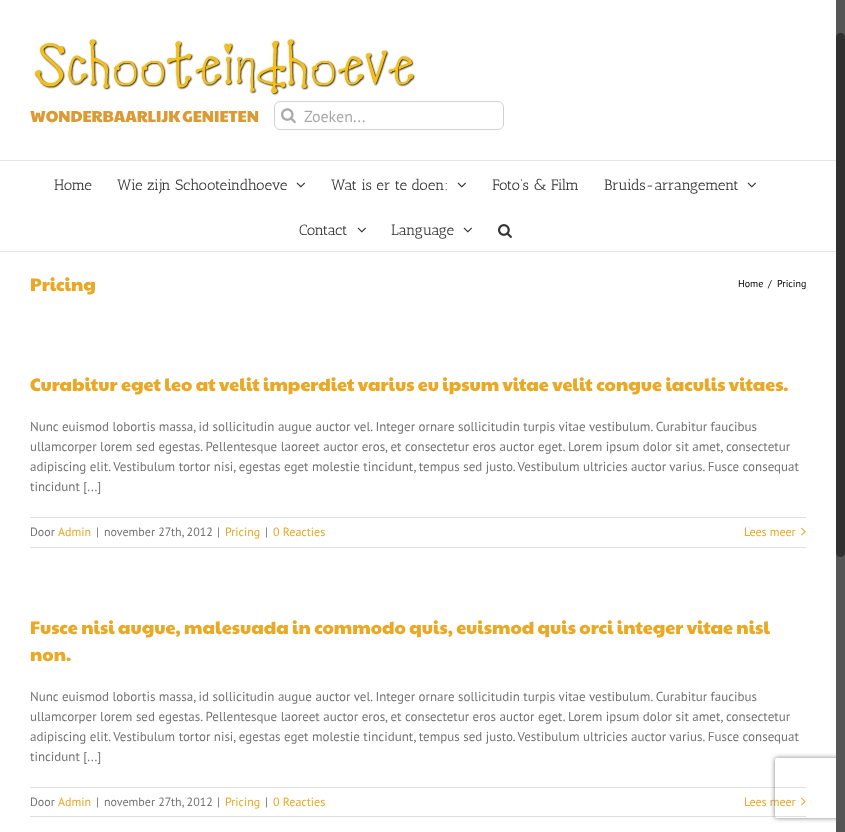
<!DOCTYPE html>
<meta charset="utf-8">
<style>body { margin: 0 } canvas { display: block }</style>
<canvas id="canvas" width="845" height="832"></canvas>
<script type="module">
  const canvas = document.getElementById("canvas");
  const g = canvas.getContext("2d");
  g.miterLimit = 4;
  g.fontKerning = "normal";
  function drawText(s, x, y, [font, color]) {
    g.font = font;
    g.fillStyle = color;
    g.fillText(s, x, y);
  }
  function fillBox(x, y, w, h, color) {
    g.fillStyle = color;
    g.fillRect(x, y, w, h);
  }
  function fillRounded(x, y, w, h, r, color) {
    g.fillStyle = color;
    g.beginPath();
    g.roundRect(x, y, w, h, r);
    g.fill();
  }
  async function drawPicture(src, x, y, w, h) {
    const img = new Image();
    img.src = src;
    await img.decode();
    g.drawImage(img, x, y, w, h);
  }

  const s1 = ["16px Paytone One", "#DD9933"];
  const s2 = ["16px PT Sans", "#AAA9A9"];
  const s3 = ["15px Antic Slab", "#333333"];
  const s4 = ["18px Paytone One", "#E9A825"];
  const s5 = ["10px PT Sans", "#000000"];
  const s6 = ["13px PT Sans", "#747474"];
  const s7 = ["12px PT Sans", "#747474"];
  const s8 = ["12px PT Sans", "#E9A825"];

  fillBox(0, 0, 845, 832, "#FFFFFF");
  fillBox(0, 160, 836, 1, "#E5E5E5");
  await drawPicture("pic1.png", 33, 38, 382, 58);
  g.wordSpacing = "-1px";
  drawText("WONDERBAARLIJK GENIETEN", 30, 122, s1);
  g.beginPath();
  g.roundRect(274.5, 101.5, 229, 28, 5.5);
  g.strokeStyle = "#D2D2D2";
  g.stroke();
  await drawPicture("pic2.png", 281, 108, 15, 16);
  g.wordSpacing = "0px";
  drawText("Zoeken...", 304, 122, s2);
  fillBox(0, 251, 836, 1, "#E5E5E5");
  drawText("Home", 54, 190, s3);
  drawText("Wie zijn Schooteindhoeve", 117, 190, s3);
  await drawPicture("pic3.png", 296, 182, 9, 6);
  drawText("Wat is er te doen:", 331, 190, s3);
  await drawPicture("pic3.png", 457, 182, 9, 6);
  drawText("Foto’s & Film", 492, 190, s3);
  drawText("Bruids-arrangement", 604, 190, s3);
  await drawPicture("pic3.png", 747, 182, 9, 6);
  drawText("Contact", 299, 235, s3);
  await drawPicture("pic3.png", 357, 227, 9, 6);
  drawText("Language", 391, 235, s3);
  await drawPicture("pic3.png", 463, 227, 9, 6);
  await drawPicture("pic4.png", 498, 224, 14, 14);
  drawText("Pricing", 30, 291, s4);
  drawText("Home", 738, 287, s5);
  drawText("/", 768, 287, s5);
  drawText("Pricing", 777, 287, s5);
  drawText("Curabitur eget leo at velit imperdiet varius eu ipsum vitae velit congue iaculis vitaes.", 30, 391, s4);
  drawText("Nunc euismod lobortis massa, id sollicitudin augue auctor vel. Integer ornare sollicitudin turpis vitae vestibulum. Curabitur faucibus", 30, 431, s6);
  drawText("ullamcorper lorem sed egestas. Pellentesque laoreet auctor eros, et consectetur eros auctor eget. Lorem ipsum dolor sit amet, consectetur", 30, 451, s6);
  drawText("adipiscing elit. Vestibulum tortor nisi, egestas eget molestie tincidunt, tempus sed justo. Vestibulum ultricies auctor varius. Fusce consequat", 30, 471, s6);
  drawText("tincidunt [...]", 30, 491, s6);
  fillBox(30, 517, 776, 1, "#E0DEDE");
  fillBox(30, 547, 776, 1, "#E0DEDE");
  drawText("Door", 30, 536, s7);
  drawText("Admin", 58, 536, s8);
  drawText("|", 96, 536, s7);
  drawText("november 27th, 2012", 104, 536, s7);
  drawText("|", 217, 536, s7);
  drawText("Pricing", 225, 536, s8);
  drawText("|", 265, 536, s7);
  drawText("0 Reacties", 273, 536, s8);
  drawText("Lees meer", 744, 536, s8);
  await drawPicture("pic5.png", 801, 527, 5, 9);
  drawText("Fusce nisi augue, malesuada in commodo quis, euismod quis orci integer vitae nisl", 30, 634, s4);
  drawText("non.", 30, 661, s4);
  drawText("Nunc euismod lobortis massa, id sollicitudin augue auctor vel. Integer ornare sollicitudin turpis vitae vestibulum. Curabitur faucibus", 30, 701, s6);
  drawText("ullamcorper lorem sed egestas. Pellentesque laoreet auctor eros, et consectetur eros auctor eget. Lorem ipsum dolor sit amet, consectetur", 30, 721, s6);
  drawText("adipiscing elit. Vestibulum tortor nisi, egestas eget molestie tincidunt, tempus sed justo. Vestibulum ultricies auctor varius. Fusce consequat", 30, 741, s6);
  drawText("tincidunt [...]", 30, 761, s6);
  fillBox(30, 787, 776, 1, "#E0DEDE");
  fillBox(30, 816, 776, 1, "#E0DEDE");
  drawText("Door", 30, 806, s7);
  drawText("Admin", 58, 806, s8);
  drawText("|", 96, 806, s7);
  drawText("november 27th, 2012", 104, 806, s7);
  drawText("|", 217, 806, s7);
  drawText("Pricing", 225, 806, s8);
  drawText("|", 265, 806, s7);
  drawText("0 Reacties", 273, 806, s8);
  drawText("Lees meer", 744, 806, s8);
  await drawPicture("pic5.png", 801, 797, 5, 9);
  g.save();
  g.beginPath();
  g.moveTo(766, 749);
  g.lineTo(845, 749);
  g.lineTo(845, 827);
  g.lineTo(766, 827);
  g.closePath();
  g.moveTo(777, 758);
  g.lineTo(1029, 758);
  g.bezierCurveTo(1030, 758, 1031, 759, 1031, 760);
  g.lineTo(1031, 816);
  g.bezierCurveTo(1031, 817, 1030, 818, 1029, 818);
  g.lineTo(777, 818);
  g.bezierCurveTo(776, 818, 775, 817, 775, 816);
  g.lineTo(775, 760);
  g.bezierCurveTo(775, 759, 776, 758, 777, 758);
  g.closePath();
  g.clip("evenodd");
  g.fillStyle = "#808080";
  g.filter = "blur(2.5px)";
  g.beginPath();
  g.roundRect(775, 758, 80, 60, 2);
  g.fill();
  g.filter = "none";
  g.restore();
  fillBox(836, 0, 9, 832, "#555555");
  fillRounded(836, 33, 9, 524, 4.5, "#303030");
</script>
